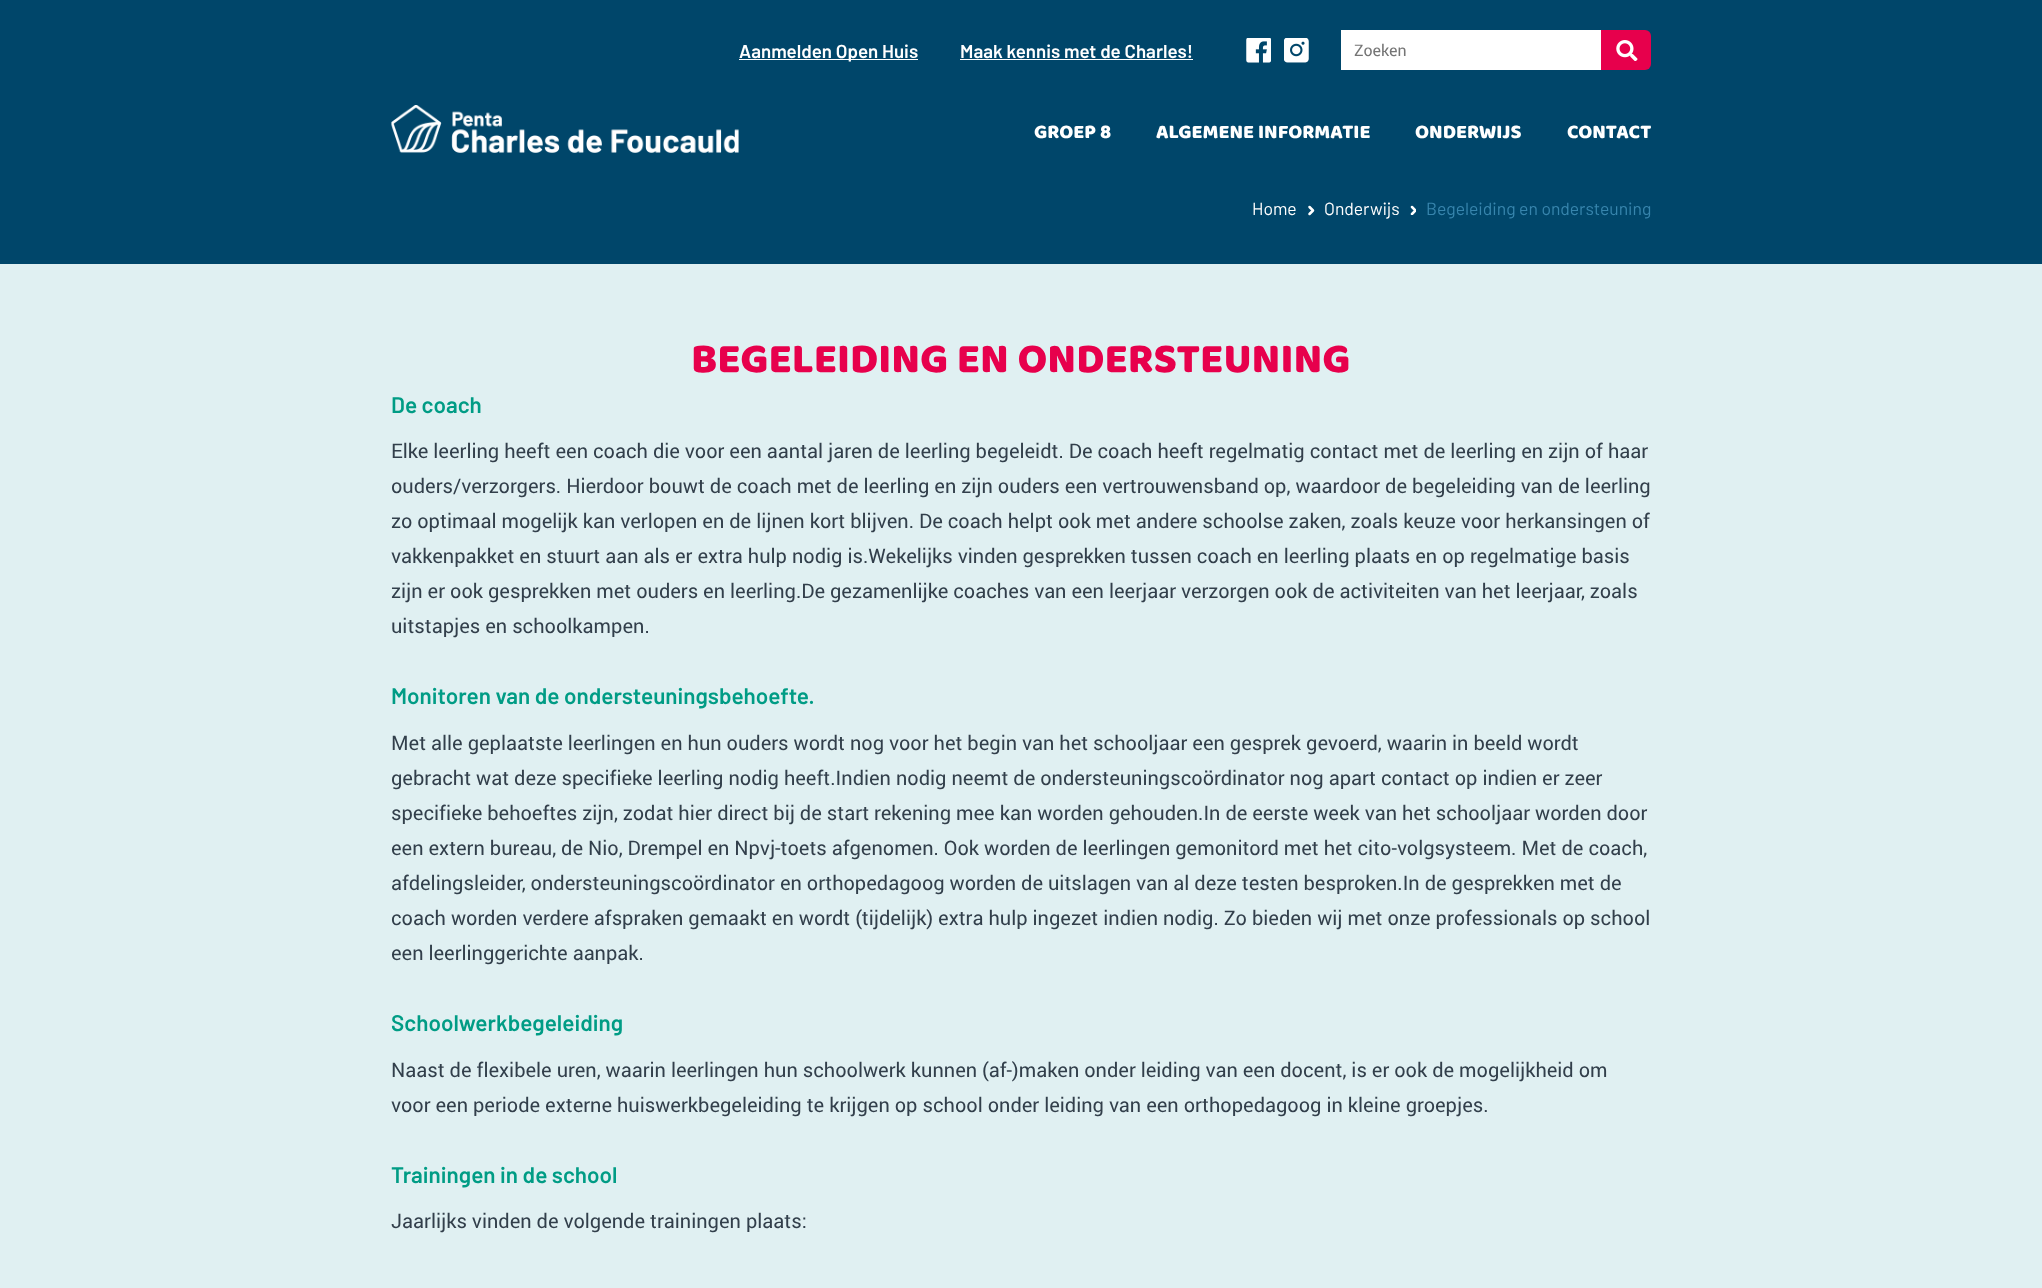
<!DOCTYPE html>
<meta charset="utf-8">
<style>body { margin: 0 } canvas { display: block }</style>
<canvas id="canvas" width="2042" height="1288"></canvas>
<script type="module">
  const canvas = document.getElementById("canvas");
  const g = canvas.getContext("2d");
  g.miterLimit = 4;
  g.fontKerning = "normal";
  function drawText(s, x, y, [font, color]) {
    g.font = font;
    g.fillStyle = color;
    g.fillText(s, x, y);
  }
  function fillBox(x, y, w, h, color) {
    g.fillStyle = color;
    g.fillRect(x, y, w, h);
  }
  async function drawPicture(src, x, y, w, h) {
    const img = new Image();
    img.src = src;
    await img.decode();
    g.drawImage(img, x, y, w, h);
  }

  const s1 = ["600 18.75px Barlow", "#FFFFFF"];
  const s2 = ["16px Roboto", "#757575"];
  const s3 = ["20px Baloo", "#FFFFFF"];
  const s4 = ["17.5px Barlow", "#FFFFFF"];
  const s5 = ["17.5px Barlow", "#3785AD"];
  const s6 = ["42.5px Baloo", "#E7004C"];
  const s7 = ["600 22.5px Barlow", "#009C85"];
  const s8 = ["20px Roboto", "#323F4B"];

  fillBox(0, 0, 2042, 1288, "#E0F0F2");
  fillBox(0, 0, 2042, 264, "#00466A");
  fillBox(739, 59, 179, 1, "#FFFFFF");
  drawText("Aanmelden Open Huis", 739, 58, s1);
  drawText("Maak kennis met de Charles!", 960, 58, s1);
  fillBox(960, 59, 233, 1, "#FFFFFF");
  await drawPicture("pic1.png", 1246, 38, 25, 25);
  await drawPicture("pic2.png", 1284, 38, 25, 25);
  fillBox(1341, 30, 260, 40, "#FFFFFF");
  drawText("Zoeken", 1354, 56, s2);
  g.fillStyle = "#E7004C";
  g.beginPath();
  g.roundRect(1601, 30, 50, 40, [0, 6, 6, 0]);
  g.fill();
  await drawPicture("pic3.png", 1616, 40, 22, 21);
  await drawPicture("pic4.png", 391, 105, 348, 48);
  drawText("GROEP 8", 1034, 138, s3);
  drawText("ALGEMENE INFORMATIE", 1156, 138, s3);
  drawText("ONDERWIJS", 1415, 138, s3);
  drawText("CONTACT", 1567, 138, s3);
  drawText("Home", 1252, 215, s4);
  g.beginPath();
  g.moveTo(1309.5, 207);
  g.lineTo(1313, 210.5);
  g.lineTo(1309.5, 214);
  g.strokeStyle = "#FFFFFF";
  g.lineWidth = 2.5;
  g.lineCap = "round";
  g.lineJoin = "round";
  g.stroke();
  drawText("Onderwijs", 1324, 215, s4);
  g.save();
  g.beginPath();
  g.rect(1410, 191, 6, 24);
  g.clip();
  g.beginPath();
  g.moveTo(1412, 207);
  g.lineTo(1415.5, 210.5);
  g.lineTo(1412, 214);
  g.stroke();
  g.restore();
  drawText("Begeleiding en ondersteuning", 1426, 215, s5);
  drawText("BEGELEIDING EN ONDERSTEUNING", 691, 372, s6);
  drawText("De coach", 391, 413, s7);
  drawText("Elke leerling heeft een coach die voor een aantal jaren de leerling begeleidt. De coach heeft regelmatig contact met de leerling en zijn of haar", 391, 458, s8);
  drawText("ouders/verzorgers. Hierdoor bouwt de coach met de leerling en zijn ouders een vertrouwensband op, waardoor de begeleiding van de leerling", 391, 493, s8);
  drawText("zo optimaal mogelijk kan verlopen en de lijnen kort blijven. De coach helpt ook met andere schoolse zaken, zoals keuze voor herkansingen of", 391, 528, s8);
  drawText("vakkenpakket en stuurt aan als er extra hulp nodig is.Wekelijks vinden gesprekken tussen coach en leerling plaats en op regelmatige basis", 391, 563, s8);
  drawText("zijn er ook gesprekken met ouders en leerling.De gezamenlijke coaches van een leerjaar verzorgen ook de activiteiten van het leerjaar, zoals", 391, 598, s8);
  drawText("uitstapjes en schoolkampen.", 391, 633, s8);
  drawText("Monitoren van de ondersteuningsbehoefte.", 391, 704, s7);
  drawText("Met alle geplaatste leerlingen en hun ouders wordt nog voor het begin van het schooljaar een gesprek gevoerd, waarin in beeld wordt", 391, 750, s8);
  drawText("gebracht wat deze specifieke leerling nodig heeft.Indien nodig neemt de ondersteuningscoördinator nog apart contact op indien er zeer", 391, 785, s8);
  drawText("specifieke behoeftes zijn, zodat hier direct bij de start rekening mee kan worden gehouden.In de eerste week van het schooljaar worden door", 391, 820, s8);
  drawText("een extern bureau, de Nio, Drempel en Npvj-toets afgenomen. Ook worden de leerlingen gemonitord met het cito-volgsysteem. Met de coach,", 391, 855, s8);
  drawText("afdelingsleider, ondersteuningscoördinator en orthopedagoog worden de uitslagen van al deze testen besproken.In de gesprekken met de", 391, 890, s8);
  drawText("coach worden verdere afspraken gemaakt en wordt (tijdelijk) extra hulp ingezet indien nodig. Zo bieden wij met onze professionals op school", 391, 925, s8);
  drawText("een leerlinggerichte aanpak.", 391, 960, s8);
  drawText("Schoolwerkbegeleiding", 391, 1031, s7);
  drawText("Naast de flexibele uren, waarin leerlingen hun schoolwerk kunnen (af-)maken onder leiding van een docent, is er ook de mogelijkheid om", 391, 1077, s8);
  drawText("voor een periode externe huiswerkbegeleiding te krijgen op school onder leiding van een orthopedagoog in kleine groepjes.", 391, 1112, s8);
  drawText("Trainingen in de school", 391, 1183, s7);
  drawText("Jaarlijks vinden de volgende trainingen plaats:", 391, 1228, s8);
</script>
